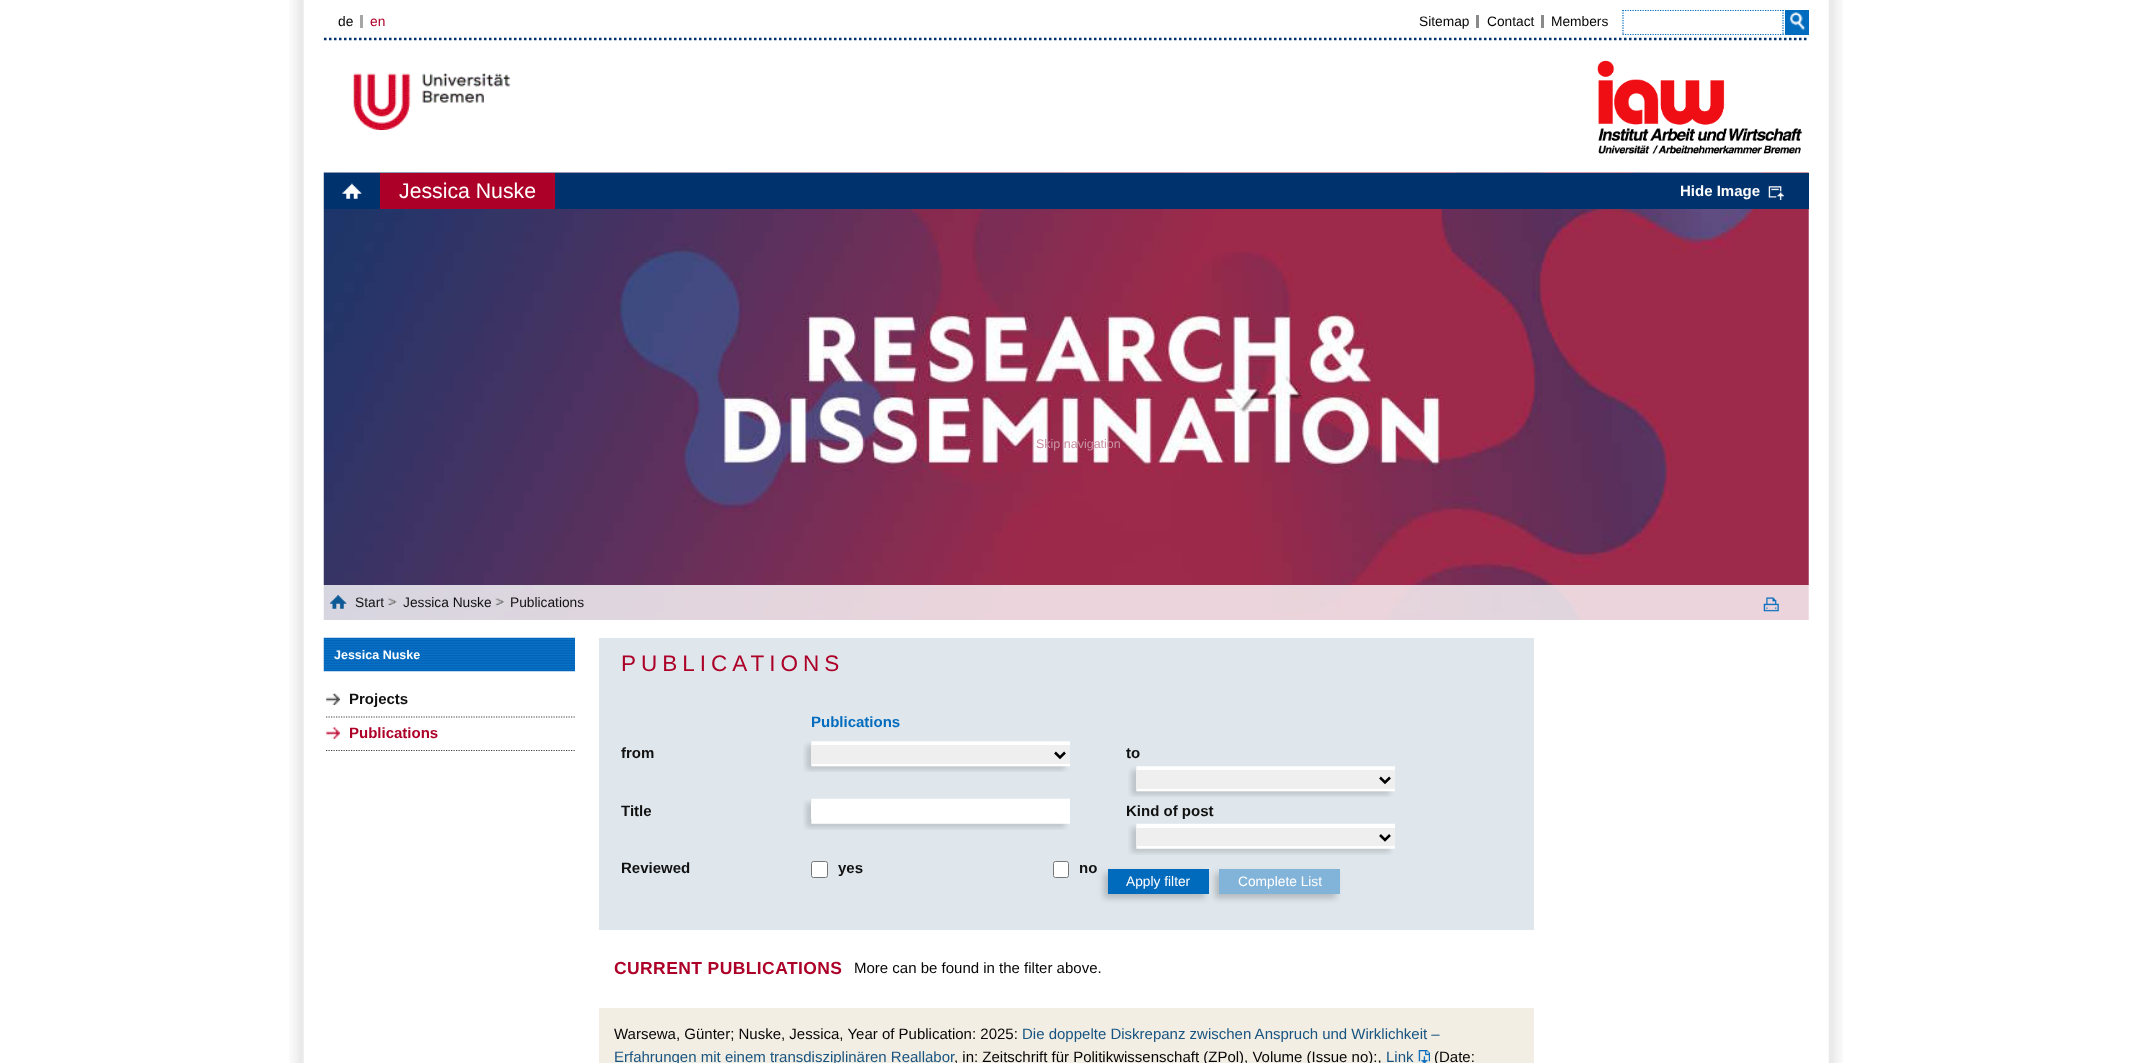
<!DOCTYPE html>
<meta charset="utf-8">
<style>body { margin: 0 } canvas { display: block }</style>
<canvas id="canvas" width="2132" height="1063"></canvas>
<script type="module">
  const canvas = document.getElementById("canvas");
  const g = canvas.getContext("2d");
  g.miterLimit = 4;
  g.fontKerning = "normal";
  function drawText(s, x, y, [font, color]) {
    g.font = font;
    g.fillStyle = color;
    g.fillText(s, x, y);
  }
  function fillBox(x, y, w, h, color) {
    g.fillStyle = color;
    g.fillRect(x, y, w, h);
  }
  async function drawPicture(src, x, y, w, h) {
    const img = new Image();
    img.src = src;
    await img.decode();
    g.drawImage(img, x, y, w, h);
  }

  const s1 = ["13.75px Liberation Sans", "#050505"];
  const s2 = ["13.75px Liberation Sans", "#AD0028"];
  const s3 = ["21.25px Liberation Sans", "#FFFFFF"];
  const s4 = ["bold 15px Liberation Sans", "#FFFFFF"];
  const s5 = ["13.75px Liberation Sans", "#111111"];
  const s6 = ["bold 12.5px Liberation Sans", "#FFFFFF"];
  const s7 = ["bold 15px Liberation Sans", "#111111"];
  const s8 = ["bold 15px Liberation Sans", "#AD0028"];
  const s9 = ["22.5px Liberation Sans", "#AD0028"];
  const s10 = ["bold 15px Liberation Sans", "#046CBE"];
  const s11 = ["13.75px Liberation Sans", "#FFFFFF"];
  const s12 = ["bold 17.5px Liberation Sans", "#AD0028"];
  const s13 = ["15px Liberation Sans", "#050505"];
  const s14 = ["15px Liberation Sans", "#185481"];
  const s15 = ["12.5px Liberation Sans", "#CA93A4"];

  fillBox(0, 0, 2132, 1063, "#FFFFFF");
  await drawPicture("pic1.png", 289, 0, 15, 1063);
  await drawPicture("pic2.png", 1828, 0, 15, 1063);
  g.beginPath();
  g.moveTo(324, 39);
  g.lineTo(1809, 39);
  g.strokeStyle = "#00326D";
  g.lineWidth = 2.5;
  g.setLineDash([2.5, 2.5]);
  g.stroke();
  drawText("de", 338, 26, s1);
  fillBox(360, 15, 3, 13, "#A6A6A6");
  drawText("en", 370, 26, s2);
  drawText("Sitemap", 1419, 26, s1);
  fillBox(1476, 15, 3, 13, "#8A8A8A");
  drawText("Contact", 1487, 26, s1);
  fillBox(1541, 15, 3, 13, "#8A8A8A");
  drawText("Members", 1551, 26, s1);
  g.beginPath();
  g.moveTo(1622.5, 10.5);
  g.lineTo(1784, 10.5);
  g.strokeStyle = "#006CBF";
  g.lineWidth = 1.2;
  g.setLineDash([1.25, 1.25]);
  g.stroke();
  g.beginPath();
  g.moveTo(1783, 10);
  g.lineTo(1783, 35);
  g.stroke();
  g.beginPath();
  g.moveTo(1622.5, 34.5);
  g.lineTo(1784, 34.5);
  g.stroke();
  g.beginPath();
  g.moveTo(1623, 10);
  g.lineTo(1623, 35);
  g.stroke();
  fillBox(1785, 10, 24, 25, "#006CBF");
  await drawPicture("pic3.png", 1789, 12, 17, 19);
  await drawPicture("pic4.png", 353, 73, 158, 57);
  await drawPicture("pic5.png", 1597, 60, 206, 94);
  await drawPicture("pic6.png", 323, 172, 1486, 448);
  fillBox(324, 173, 1485, 36, "#00326D");
  await drawPicture("pic7.png", 342, 183, 20, 16);
  fillBox(380, 173, 175, 36, "#AD0028");
  drawText("Jessica Nuske", 399, 198, s3);
  await drawPicture("pic8.png", 1768, 186, 16, 14);
  drawText("Hide Image", 1680, 196, s4);
  fillBox(323, 585, 1486, 35, "rgba(255, 255, 255, 0.8)");
  await drawPicture("pic9.png", 330, 595, 17, 14);
  drawText("Start", 355, 607, s5);
  await drawPicture("pic10.png", 387, 597, 10, 9);
  drawText("Jessica Nuske", 403, 607, s5);
  await drawPicture("pic11.png", 495, 597, 9, 10);
  drawText("Publications", 510, 607, s5);
  await drawPicture("pic12.png", 1763, 597, 16, 15);
  await drawPicture("pic13.png", 323, 637, 252, 35);
  drawText("Jessica Nuske", 334, 659, s6);
  g.beginPath();
  g.moveTo(326, 717);
  g.lineTo(575, 717);
  g.strokeStyle = "#444444";
  g.stroke();
  await drawPicture("pic14.png", 326, 693, 14, 12);
  drawText("Projects", 349, 704, s7);
  g.beginPath();
  g.moveTo(326, 750.5);
  g.lineTo(575, 750.5);
  g.stroke();
  await drawPicture("pic15.png", 326, 727, 14, 12);
  drawText("Publications", 349, 738, s8);
  fillBox(599, 638, 935, 292, "#DFE7EC");
  g.letterSpacing = "5px";
  drawText("PUBLICATIONS", 621, 671, s9);
  g.letterSpacing = "0px";
  drawText("Publications", 811, 727, s10);
  drawText("from", 621, 758, s7);
  await drawPicture("pic16.png", 803, 741, 267, 31);
  fillBox(811, 745, 259, 19, "#EFEFEF");
  g.beginPath();
  g.moveTo(1055, 752.5);
  g.lineTo(1060, 757.5);
  g.lineTo(1065, 752.5);
  g.strokeStyle = "#000000";
  g.lineWidth = 2.5;
  g.setLineDash([]);
  g.stroke();
  drawText("to", 1126, 758, s7);
  await drawPicture("pic17.png", 1128, 766, 267, 31);
  fillBox(1136, 770, 259, 19, "#EFEFEF");
  g.beginPath();
  g.moveTo(1380, 777.5);
  g.lineTo(1385, 782.5);
  g.lineTo(1390, 777.5);
  g.stroke();
  drawText("Title", 621, 816, s7);
  await drawPicture("pic18.png", 803, 798, 267, 32);
  fillBox(811, 803, 1, 16, "#FFFFFF");
  drawText("Kind of post", 1126, 816, s7);
  await drawPicture("pic19.png", 1128, 823, 267, 32);
  fillBox(1136, 828, 259, 18, "#EFEFEF");
  g.beginPath();
  g.moveTo(1380, 835);
  g.lineTo(1385, 840);
  g.lineTo(1390, 835);
  g.stroke();
  drawText("Reviewed", 621, 873, s7);
  g.fillStyle = "#FFFFFF";
  g.beginPath();
  g.roundRect(811.5, 861.5, 16, 16, 2);
  g.fill();
  g.strokeStyle = "#767676";
  g.lineWidth = 1;
  g.stroke();
  drawText("yes", 838, 873, s7);
  g.fillStyle = "#FFFFFF";
  g.beginPath();
  g.roundRect(1053.5, 861.5, 15, 16, 2);
  g.fill();
  g.stroke();
  drawText("no", 1079, 873, s7);
  g.fillStyle = "rgba(0, 0, 0, 0.2)";
  g.filter = "blur(3px)";
  g.beginPath();
  g.rect(1104, 873, 101, 25);
  g.fill();
  g.filter = "none";
  fillBox(1108, 869, 101, 25, "#006ABD");
  drawText("Apply filter", 1126, 886, s11);
  g.fillStyle = "rgba(0, 0, 0, 0.2)";
  g.filter = "blur(3px)";
  g.beginPath();
  g.rect(1215, 873, 121, 25);
  g.fill();
  g.filter = "none";
  fillBox(1219, 869, 121, 25, "#82B3D9");
  drawText("Complete List", 1238, 886, s11);
  g.letterSpacing = "0.4px";
  drawText("CURRENT PUBLICATIONS", 614, 974, s12);
  g.letterSpacing = "0px";
  drawText("More can be found in the filter above.", 854, 973, s13);
  fillBox(599, 1008, 935, 55, "#F3EEE4");
  drawText("Warsewa, Günter; Nuske, Jessica, Year of Publication: 2025:", 614, 1039, s13);
  drawText("Die doppelte Diskrepanz zwischen Anspruch und Wirklichkeit –", 1022, 1039, s14);
  drawText("Erfahrungen mit einem transdisziplinären Reallabor", 614, 1062, s14);
  drawText(", in: Zeitschrift für Politikwissenschaft (ZPol), Volume (Issue no):,", 954, 1062, s13);
  drawText("Link", 1386, 1062, s14);
  await drawPicture("pic20.png", 1418, 1050, 12, 13);
  drawText("(Date:", 1434, 1062, s13);
  drawText("Skip navigation", 1036, 448, s15);
</script>
